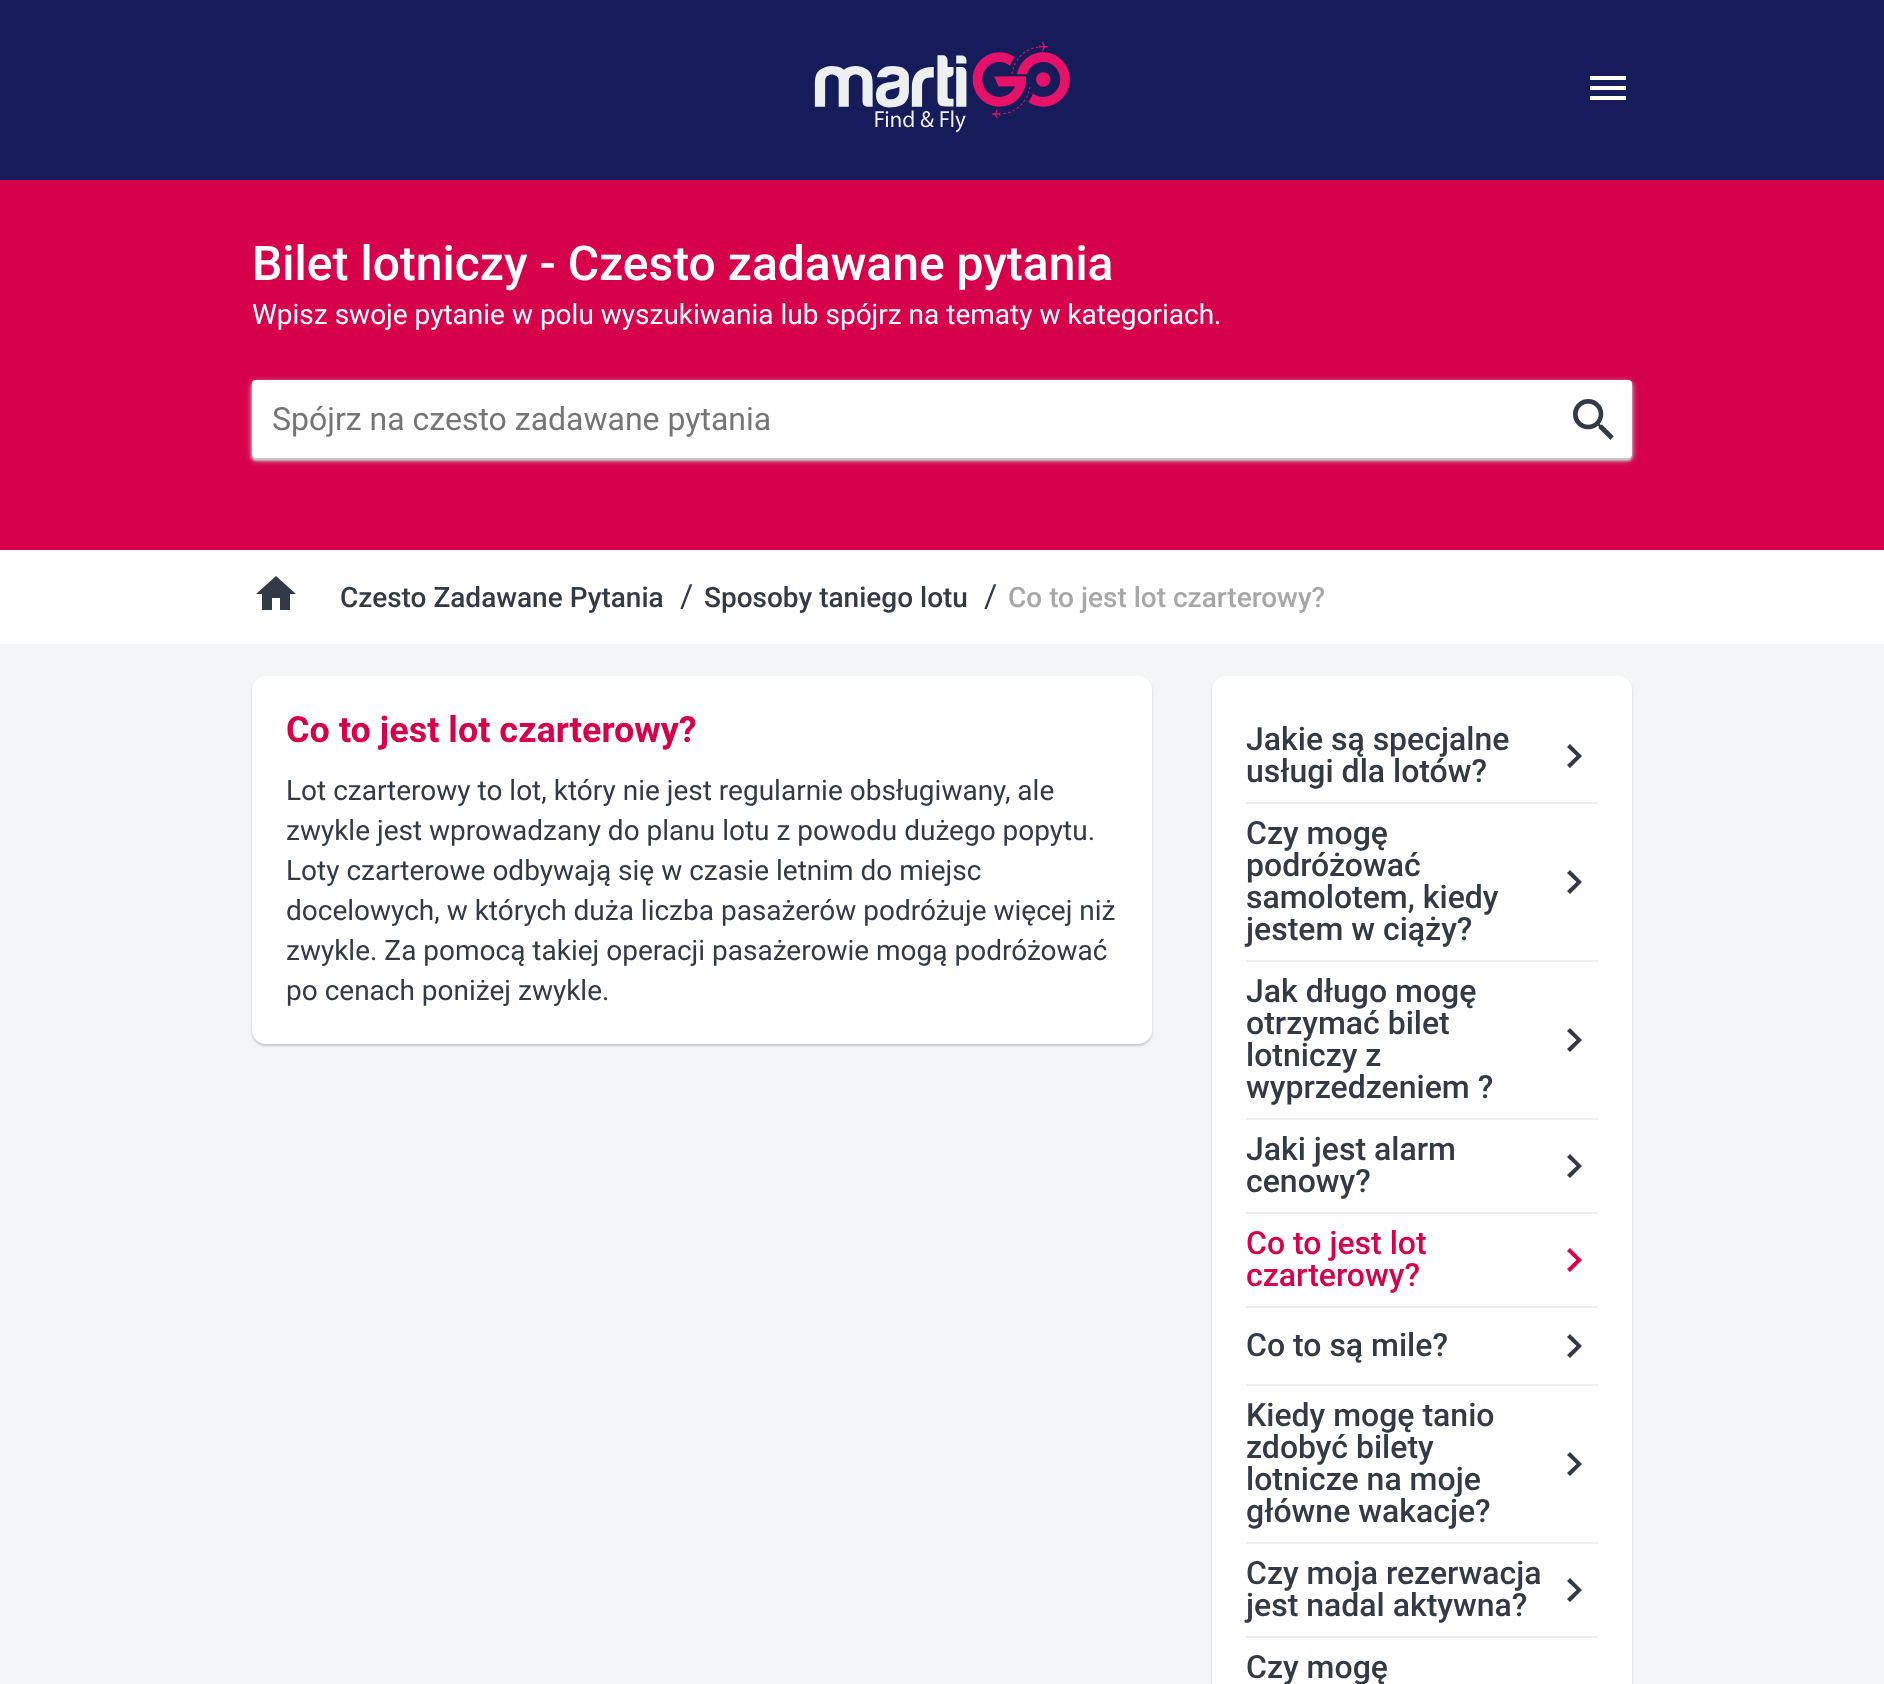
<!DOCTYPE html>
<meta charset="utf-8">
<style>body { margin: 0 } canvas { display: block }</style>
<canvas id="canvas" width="1884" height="1684"></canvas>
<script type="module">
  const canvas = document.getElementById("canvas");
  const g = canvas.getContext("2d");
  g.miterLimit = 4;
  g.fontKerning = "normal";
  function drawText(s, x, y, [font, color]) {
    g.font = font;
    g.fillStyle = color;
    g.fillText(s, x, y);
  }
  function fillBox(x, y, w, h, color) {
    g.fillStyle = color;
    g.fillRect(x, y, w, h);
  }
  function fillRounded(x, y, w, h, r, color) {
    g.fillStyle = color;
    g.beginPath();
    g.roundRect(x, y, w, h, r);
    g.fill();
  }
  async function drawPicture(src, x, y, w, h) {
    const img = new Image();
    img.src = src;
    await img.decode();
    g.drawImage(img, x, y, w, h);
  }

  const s1 = ["500 48px Roboto", "#FFFFFF"];
  const s2 = ["28px Roboto", "#FFFFFF"];
  const s3 = ["32px Roboto", "#757575"];
  const s4 = ["500 28px Roboto", "#323A45"];
  const s5 = ["32px Roboto", "#323A45"];
  const s6 = ["500 28px Roboto", "#A7A7A7"];
  const s7 = ["bold 36px Roboto", "#D6014A"];
  const s8 = ["28px Roboto", "#323A45"];
  const s9 = ["500 32px Roboto", "#323A45"];
  const s10 = ["500 32px Roboto", "#D6014A"];

  fillBox(0, 0, 1884, 1684, "#F3F5F7");
  fillBox(0, 0, 1884, 180, "#161B5A");
  await drawPicture("pic1.png", 814, 42, 256, 91);
  g.fillStyle = "#FFFFFF";
  g.beginPath();
  g.moveTo(1590, 76);
  g.lineTo(1626, 76);
  g.lineTo(1626, 80);
  g.lineTo(1590, 80);
  g.closePath();
  g.moveTo(1590, 90);
  g.lineTo(1590, 86);
  g.lineTo(1626, 86);
  g.lineTo(1626, 90);
  g.closePath();
  g.moveTo(1590, 100);
  g.lineTo(1590, 96);
  g.lineTo(1626, 96);
  g.lineTo(1626, 100);
  g.closePath();
  g.fill();
  fillBox(0, 180, 1884, 370, "#D6014A");
  drawText("Bilet lotniczy - Czesto zadawane pytania", 252, 280, s1);
  drawText("Wpisz swoje pytanie w polu wyszukiwania lub spójrz na tematy w kategoriach.", 252, 324, s2);
  g.fillStyle = "#C2CAC8";
  g.filter = "blur(3px)";
  g.beginPath();
  g.roundRect(252, 382, 1380, 78, 4);
  g.fill();
  g.filter = "none";
  g.filter = "blur(1px)";
  g.beginPath();
  g.roundRect(254, 386, 1376, 74, 2);
  g.fill();
  g.filter = "none";
  g.filter = "blur(1px)";
  g.beginPath();
  g.roundRect(252, 382, 1380, 78, 4);
  g.fill();
  g.filter = "none";
  fillRounded(252, 380, 1380, 78, 4, "#FFFFFF");
  drawText("Spójrz na czesto zadawane pytania", 272, 430, s3);
  await drawPicture("pic2.png", 1573, 399, 41, 41);
  fillBox(0, 550, 1884, 94, "#FFFFFF");
  g.fillStyle = "#323A45";
  g.beginPath();
  g.moveTo(272, 610);
  g.lineTo(262, 610);
  g.lineTo(262, 594);
  g.lineTo(256, 594);
  g.lineTo(276, 576);
  g.lineTo(296, 594);
  g.lineTo(290, 594);
  g.lineTo(290, 610);
  g.lineTo(280, 610);
  g.lineTo(280, 598);
  g.lineTo(272, 598);
  g.closePath();
  g.fill();
  drawText("Czesto Zadawane Pytania", 340, 607, s4);
  drawText("/", 680, 607, s5);
  drawText("Sposoby taniego lotu", 704, 607, s4);
  drawText("/", 984, 607, s5);
  drawText("Co to jest lot czarterowy?", 1008, 607, s6);
  g.fillStyle = "#C2CAC8";
  g.filter = "blur(1px)";
  g.beginPath();
  g.roundRect(252, 678, 900, 368, 14);
  g.fill();
  g.filter = "none";
  fillRounded(252, 676, 900, 368, 14, "#FFFFFF");
  drawText("Co to jest lot czarterowy?", 286, 742, s7);
  drawText("Lot czarterowy to lot, który nie jest regularnie obsługiwany, ale", 286, 800, s8);
  drawText("zwykle jest wprowadzany do planu lotu z powodu dużego popytu.", 286, 840, s8);
  drawText("Loty czarterowe odbywają się w czasie letnim do miejsc", 286, 880, s8);
  drawText("docelowych, w których duża liczba pasażerów podróżuje więcej niż", 286, 920, s8);
  drawText("zwykle. Za pomocą takiej operacji pasażerowie mogą podróżować", 286, 960, s8);
  drawText("po cenach poniżej zwykle.", 286, 1000, s8);
  g.fillStyle = "#C2CAC8";
  g.filter = "blur(1px)";
  g.beginPath();
  g.roundRect(1212, 678, 420, 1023, 14);
  g.fill();
  g.filter = "none";
  fillRounded(1212, 676, 420, 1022, 14, "#FFFFFF");
  fillBox(1246, 802, 352, 2, "#EFEFEF");
  drawText("Jakie są specjalne", 1246, 750, s9);
  drawText("usługi dla lotów?", 1246, 782, s9);
  g.beginPath();
  g.moveTo(1570, 744);
  g.lineTo(1582, 756);
  g.lineTo(1570, 768);
  g.lineTo(1567, 765);
  g.lineTo(1576.5, 756);
  g.lineTo(1567, 747);
  g.closePath();
  g.fill();
  fillBox(1246, 960, 352, 2, "#EFEFEF");
  drawText("Czy mogę", 1246, 844, s9);
  drawText("podróżować", 1246, 876, s9);
  drawText("samolotem, kiedy", 1246, 908, s9);
  drawText("jestem w ciąży?", 1246, 940, s9);
  g.beginPath();
  g.moveTo(1570, 870);
  g.lineTo(1582, 882);
  g.lineTo(1570, 894);
  g.lineTo(1567, 891);
  g.lineTo(1576.5, 882);
  g.lineTo(1567, 873);
  g.closePath();
  g.fill();
  fillBox(1246, 1118, 352, 2, "#EFEFEF");
  drawText("Jak długo mogę", 1246, 1002, s9);
  drawText("otrzymać bilet", 1246, 1034, s9);
  drawText("lotniczy z", 1246, 1066, s9);
  drawText("wyprzedzeniem ?", 1246, 1098, s9);
  g.beginPath();
  g.moveTo(1570, 1028);
  g.lineTo(1582, 1040);
  g.lineTo(1570, 1052);
  g.lineTo(1567, 1049);
  g.lineTo(1576.5, 1040);
  g.lineTo(1567, 1031);
  g.closePath();
  g.fill();
  fillBox(1246, 1212, 352, 2, "#EFEFEF");
  drawText("Jaki jest alarm", 1246, 1160, s9);
  drawText("cenowy?", 1246, 1192, s9);
  g.beginPath();
  g.moveTo(1570, 1154);
  g.lineTo(1582, 1166);
  g.lineTo(1570, 1178);
  g.lineTo(1567, 1175);
  g.lineTo(1576.5, 1166);
  g.lineTo(1567, 1157);
  g.closePath();
  g.fill();
  fillBox(1246, 1306, 352, 2, "#EFEFEF");
  drawText("Co to jest lot", 1246, 1254, s10);
  drawText("czarterowy?", 1246, 1286, s10);
  g.beginPath();
  g.moveTo(1570, 1248);
  g.lineTo(1582, 1260);
  g.lineTo(1570, 1272);
  g.lineTo(1567, 1269);
  g.lineTo(1576.5, 1260);
  g.lineTo(1567, 1251);
  g.closePath();
  g.fill();
  fillBox(1246, 1384, 352, 2, "#EFEFEF");
  drawText("Co to są mile?", 1246, 1356, s9);
  g.beginPath();
  g.moveTo(1570, 1334);
  g.lineTo(1582, 1346);
  g.lineTo(1570, 1358);
  g.lineTo(1567, 1355);
  g.lineTo(1576.5, 1346);
  g.lineTo(1567, 1337);
  g.closePath();
  g.fill();
  fillBox(1246, 1542, 352, 2, "#EFEFEF");
  drawText("Kiedy mogę tanio", 1246, 1426, s9);
  drawText("zdobyć bilety", 1246, 1458, s9);
  drawText("lotnicze na moje", 1246, 1490, s9);
  drawText("główne wakacje?", 1246, 1522, s9);
  g.beginPath();
  g.moveTo(1570, 1452);
  g.lineTo(1582, 1464);
  g.lineTo(1570, 1476);
  g.lineTo(1567, 1473);
  g.lineTo(1576.5, 1464);
  g.lineTo(1567, 1455);
  g.closePath();
  g.fill();
  fillBox(1246, 1636, 352, 2, "#EFEFEF");
  drawText("Czy moja rezerwacja", 1246, 1584, s9);
  drawText("jest nadal aktywna?", 1246, 1616, s9);
  g.beginPath();
  g.moveTo(1570, 1578);
  g.lineTo(1582, 1590);
  g.lineTo(1570, 1602);
  g.lineTo(1567, 1599);
  g.lineTo(1576.5, 1590);
  g.lineTo(1567, 1581);
  g.closePath();
  g.fill();
  drawText("Czy mogę", 1246, 1678, s9);
</script>
